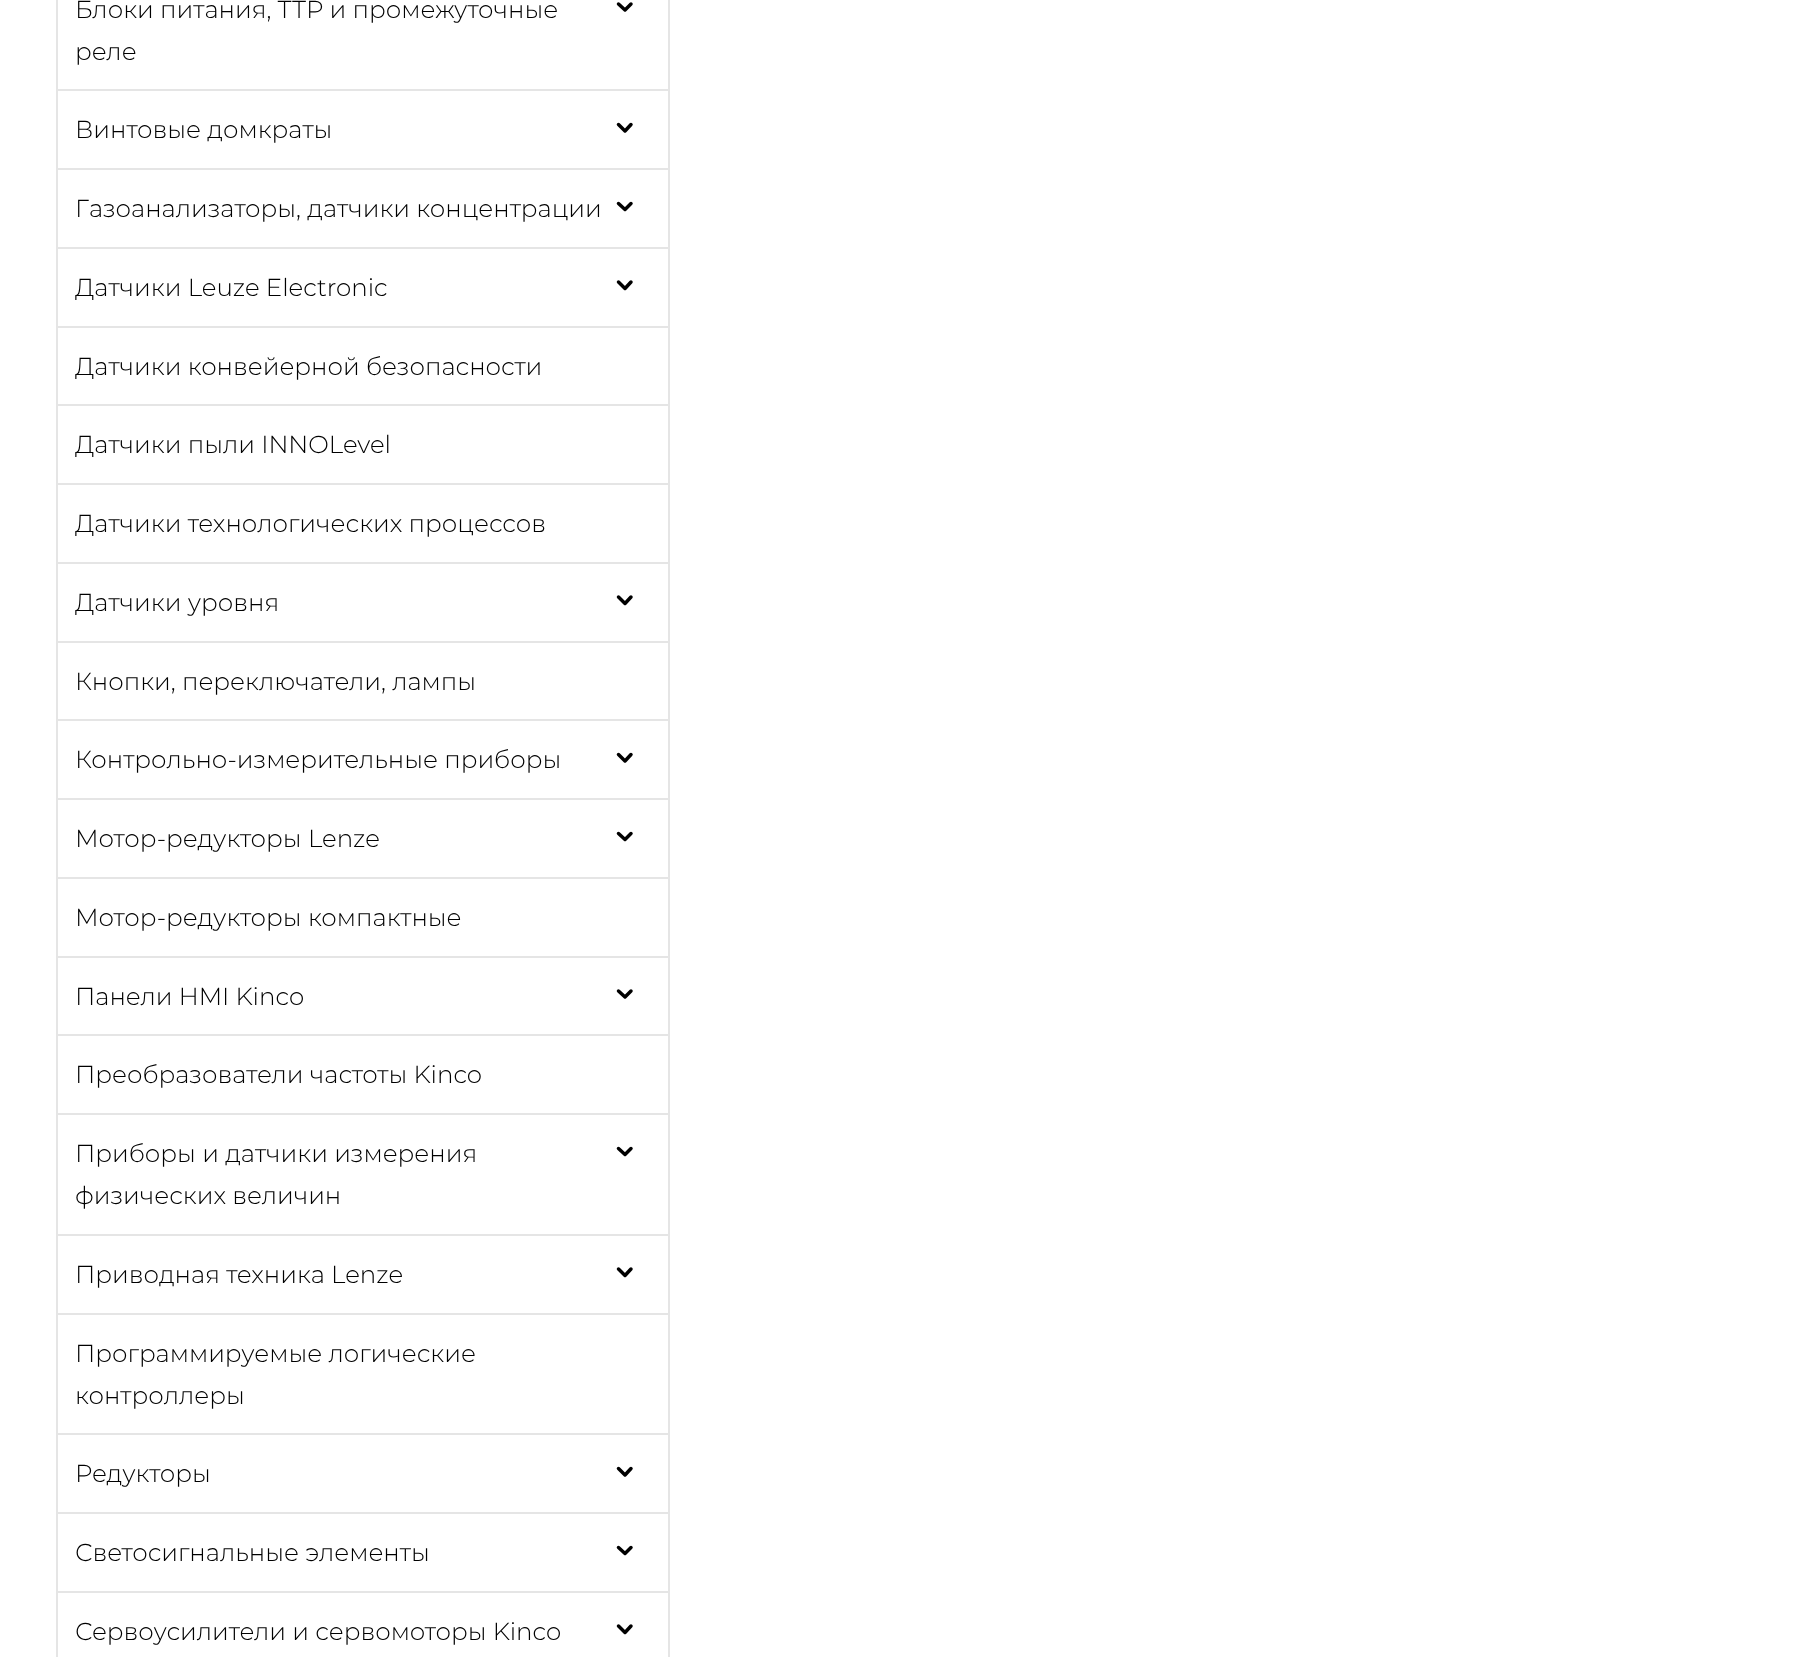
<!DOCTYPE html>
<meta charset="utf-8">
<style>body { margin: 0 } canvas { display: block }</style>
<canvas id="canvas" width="1794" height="1657"></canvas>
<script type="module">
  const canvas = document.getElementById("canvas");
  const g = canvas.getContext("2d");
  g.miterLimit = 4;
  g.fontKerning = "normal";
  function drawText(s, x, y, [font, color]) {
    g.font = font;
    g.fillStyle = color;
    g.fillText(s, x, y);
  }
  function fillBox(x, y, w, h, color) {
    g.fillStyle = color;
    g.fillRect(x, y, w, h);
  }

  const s1 = ["300 24.5px Montserrat", "#000000"];

  fillBox(0, 0, 1794, 1657, "#FFFFFF");
  g.strokeStyle = "#E5E5E5";
  g.lineWidth = 2;
  g.strokeRect(57, -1, 612, 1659);
  drawText("Блоки питания, ТТР и промежуточные", 75, 18, s1);
  g.beginPath();
  g.moveTo(618.5, 4);
  g.lineTo(625, 10);
  g.lineTo(631, 4);
  g.strokeStyle = "#000000";
  g.lineWidth = 3.5;
  g.lineCap = "round";
  g.lineJoin = "round";
  g.stroke();
  drawText("реле", 75, 60, s1);
  fillBox(58, 89, 611, 2, "#E5E5E5");
  drawText("Винтовые домкраты", 75, 138, s1);
  g.beginPath();
  g.moveTo(618.5, 124.5);
  g.lineTo(625, 131);
  g.lineTo(631, 124.5);
  g.stroke();
  fillBox(58, 168, 611, 2, "#E5E5E5");
  drawText("Газоанализаторы, датчики концентрации", 75, 217, s1);
  g.beginPath();
  g.moveTo(618.5, 203.5);
  g.lineTo(625, 209.5);
  g.lineTo(631, 203.5);
  g.stroke();
  fillBox(58, 247, 611, 2, "#E5E5E5");
  drawText("Датчики Leuze Electronic", 75, 296, s1);
  g.beginPath();
  g.moveTo(618.5, 282);
  g.lineTo(625, 288.5);
  g.lineTo(631, 282);
  g.stroke();
  fillBox(58, 326, 611, 2, "#E5E5E5");
  drawText("Датчики конвейерной безопасности", 75, 375, s1);
  fillBox(58, 404, 611, 2, "#E5E5E5");
  drawText("Датчики пыли INNOLevel", 75, 453, s1);
  fillBox(58, 483, 611, 2, "#E5E5E5");
  drawText("Датчики технологических процессов", 75, 532, s1);
  fillBox(58, 562, 611, 2, "#E5E5E5");
  drawText("Датчики уровня", 75, 611, s1);
  g.beginPath();
  g.moveTo(618.5, 597);
  g.lineTo(625, 603.5);
  g.lineTo(631, 597);
  g.stroke();
  fillBox(58, 641, 611, 2, "#E5E5E5");
  drawText("Кнопки, переключатели, лампы", 75, 690, s1);
  fillBox(58, 719, 611, 2, "#E5E5E5");
  drawText("Контрольно-измерительные приборы", 75, 768, s1);
  g.beginPath();
  g.moveTo(618.5, 754.5);
  g.lineTo(625, 761);
  g.lineTo(631, 754.5);
  g.stroke();
  fillBox(58, 798, 611, 2, "#E5E5E5");
  drawText("Мотор-редукторы Lenze", 75, 847, s1);
  g.beginPath();
  g.moveTo(618.5, 833.5);
  g.lineTo(625, 839.5);
  g.lineTo(631, 833.5);
  g.stroke();
  fillBox(58, 877, 611, 2, "#E5E5E5");
  drawText("Мотор-редукторы компактные", 75, 926, s1);
  fillBox(58, 956, 611, 2, "#E5E5E5");
  drawText("Панели HMI Kinco", 75, 1005, s1);
  g.beginPath();
  g.moveTo(618.5, 991);
  g.lineTo(625, 997);
  g.lineTo(631, 991);
  g.stroke();
  fillBox(58, 1034, 611, 2, "#E5E5E5");
  drawText("Преобразователи частоты Kinco", 75, 1083, s1);
  fillBox(58, 1113, 611, 2, "#E5E5E5");
  drawText("Приборы и датчики измерения", 75, 1162, s1);
  g.beginPath();
  g.moveTo(618.5, 1148.5);
  g.lineTo(625, 1154.5);
  g.lineTo(631, 1148.5);
  g.stroke();
  drawText("физических величин", 75, 1204, s1);
  fillBox(58, 1234, 611, 2, "#E5E5E5");
  drawText("Приводная техника Lenze", 75, 1283, s1);
  g.beginPath();
  g.moveTo(618.5, 1269);
  g.lineTo(625, 1275.5);
  g.lineTo(631, 1269);
  g.stroke();
  fillBox(58, 1313, 611, 2, "#E5E5E5");
  drawText("Программируемые логические", 75, 1362, s1);
  drawText("контроллеры", 75, 1404, s1);
  fillBox(58, 1433, 611, 2, "#E5E5E5");
  drawText("Редукторы", 75, 1482, s1);
  g.beginPath();
  g.moveTo(618.5, 1468.5);
  g.lineTo(625, 1475);
  g.lineTo(631, 1468.5);
  g.stroke();
  fillBox(58, 1512, 611, 2, "#E5E5E5");
  drawText("Светосигнальные элементы", 75, 1561, s1);
  g.beginPath();
  g.moveTo(618.5, 1547.5);
  g.lineTo(625, 1553.5);
  g.lineTo(631, 1547.5);
  g.stroke();
  fillBox(58, 1591, 611, 2, "#E5E5E5");
  drawText("Сервоусилители и сервомоторы Kinco", 75, 1640, s1);
  g.beginPath();
  g.moveTo(618.5, 1626);
  g.lineTo(625, 1632.5);
  g.lineTo(631, 1626);
  g.stroke();
</script>
